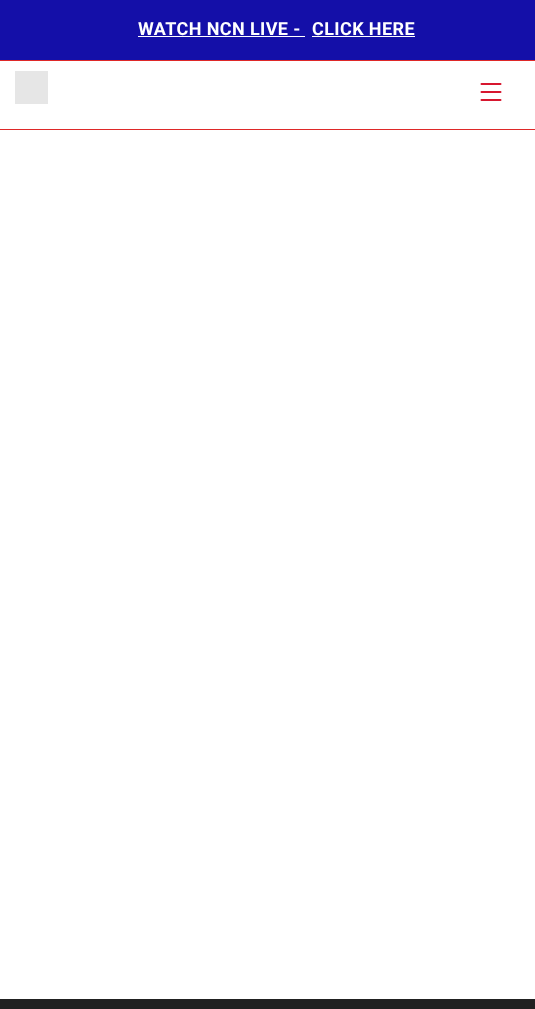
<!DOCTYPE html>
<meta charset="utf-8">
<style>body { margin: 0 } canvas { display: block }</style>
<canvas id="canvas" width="535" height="1009"></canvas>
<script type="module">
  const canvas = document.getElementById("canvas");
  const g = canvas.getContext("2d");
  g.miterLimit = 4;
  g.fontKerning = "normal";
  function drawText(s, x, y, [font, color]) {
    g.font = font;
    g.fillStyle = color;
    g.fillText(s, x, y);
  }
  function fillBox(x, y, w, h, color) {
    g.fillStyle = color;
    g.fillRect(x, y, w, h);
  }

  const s1 = ["bold 18px Roboto", "#FFFFFF"];

  fillBox(0, 0, 535, 1009, "#FFFFFF");
  fillBox(0, 0, 535, 60, "#140FA8");
  g.letterSpacing = "0.4px";
  drawText("WATCH NCN LIVE -", 138, 35, s1);
  fillBox(138, 36, 167, 1, "#FFFFFF");
  drawText("CLICK HERE", 312, 35, s1);
  fillBox(312, 36, 103, 1, "#FFFFFF");
  fillBox(0, 60, 535, 1, "#DE2828");
  fillBox(0, 129, 535, 1, "#DE2828");
  fillBox(15, 71, 33, 33, "#E6E6E6");
  g.beginPath();
  g.moveTo(481.5, 92);
  g.lineTo(500.5, 92);
  g.moveTo(481.5, 84);
  g.lineTo(500.5, 84);
  g.moveTo(481.5, 100);
  g.lineTo(500.5, 100);
  g.strokeStyle = "#D7172F";
  g.lineWidth = 2;
  g.lineCap = "round";
  g.stroke();
  fillBox(0, 999, 535, 10, "#212121");
</script>
